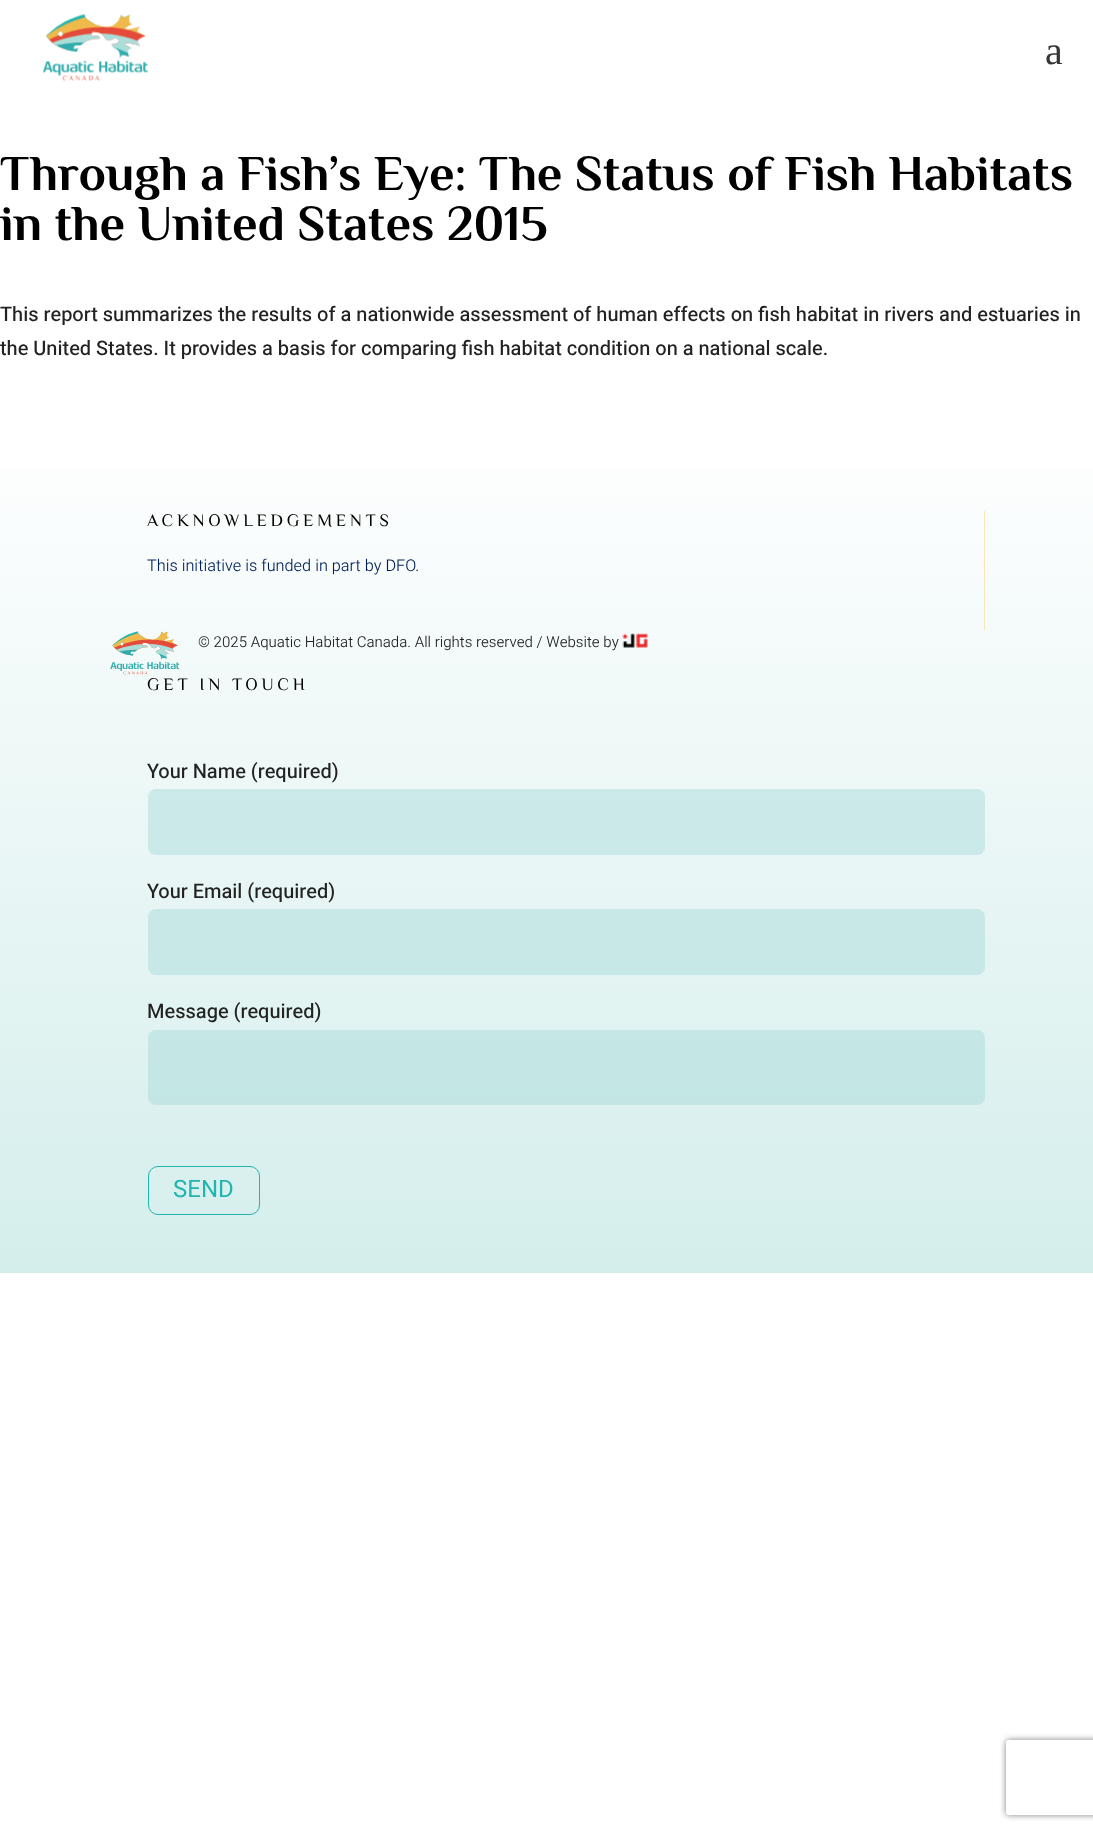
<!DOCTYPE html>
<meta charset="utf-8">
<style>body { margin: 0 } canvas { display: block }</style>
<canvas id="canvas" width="1093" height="1832"></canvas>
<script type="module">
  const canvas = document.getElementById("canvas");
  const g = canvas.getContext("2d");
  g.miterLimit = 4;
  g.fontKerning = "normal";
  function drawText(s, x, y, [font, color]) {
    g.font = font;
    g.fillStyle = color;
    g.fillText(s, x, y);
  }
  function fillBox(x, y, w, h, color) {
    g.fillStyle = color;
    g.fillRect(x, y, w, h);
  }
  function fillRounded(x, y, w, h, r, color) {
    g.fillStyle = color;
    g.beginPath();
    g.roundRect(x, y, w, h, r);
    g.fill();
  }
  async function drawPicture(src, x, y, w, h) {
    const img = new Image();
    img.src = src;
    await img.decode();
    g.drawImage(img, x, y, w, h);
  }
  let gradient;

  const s1 = ["40px Liberation Serif", "#363636"];
  const s2 = ["bold 50px Philosopher", "#000000"];
  const s3 = ["500 20px Heebo", "#222222"];
  const s4 = ["17.5px Philosopher", "#000000"];
  const s5 = ["300 16.25px Heebo", "#00205C"];
  const s6 = ["300 15px Heebo", "#222222"];
  const s7 = ["24px Heebo", "#22B5AF"];

  fillBox(0, 0, 1093, 1832, "#FFFFFF");
  await drawPicture("pic1.png", 43, 14, 106, 67);
  drawText("a", 1045, 64, s1);
  drawText("Through a Fish’s Eye: The Status of Fish Habitats", 0, 190, s2);
  drawText("in the United States 2015", 0, 240, s2);
  drawText("This report summarizes the results of a nationwide assessment of human effects on fish habitat in rivers and estuaries in", 0, 321, s3);
  drawText("the United States. It provides a basis for comparing fish habitat condition on a national scale.", 0, 355, s3);
  gradient = g.createLinearGradient(547, 419, 547, 1273);
  gradient.addColorStop(0, "#FFFFFF");
  gradient.addColorStop(1, "#D4EEEC");
  g.fillStyle = gradient;
  g.fillRect(0, 469, 1093, 804);
  gradient = g.createLinearGradient(547, 419, 547, 1273);
  gradient.addColorStop(0, "#FFE9BB");
  gradient.addColorStop(1, "#E1DEAD");
  g.fillStyle = gradient;
  g.fillRect(984, 511, 1, 119);
  g.letterSpacing = "3.75px";
  drawText("ACKNOWLEDGEMENTS", 147, 526, s4);
  g.letterSpacing = "0px";
  drawText("This initiative is funded in part by DFO.", 147, 571, s5);
  await drawPicture("pic2.png", 110, 631, 70, 44);
  drawText("© 2025 Aquatic Habitat Canada. All rights reserved / Website by", 198, 647, s6);
  await drawPicture("pic3.png", 622, 633, 26, 15);
  g.letterSpacing = "3.75px";
  drawText("GET IN TOUCH", 147, 690, s4);
  g.letterSpacing = "0px";
  drawText("Your Name (required)", 147, 778, s3);
  fillRounded(148, 789, 837, 66, 8, "rgba(169, 220, 217, 0.5)");
  drawText("Your Email (required)", 147, 898, s3);
  fillRounded(148, 909, 837, 66, 8, "rgba(169, 220, 217, 0.5)");
  drawText("Message (required)", 147, 1018, s3);
  fillRounded(148, 1030, 837, 75, 8, "rgba(169, 220, 217, 0.5)");
  g.beginPath();
  g.roundRect(148.5, 1166.5, 111, 48, 9.5);
  g.strokeStyle = "#22B5AF";
  g.stroke();
  drawText("SEND", 173, 1197, s7);
  g.save();
  g.beginPath();
  g.moveTo(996, 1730);
  g.lineTo(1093, 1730);
  g.lineTo(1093, 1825);
  g.lineTo(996, 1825);
  g.closePath();
  g.moveTo(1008.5, 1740);
  g.lineTo(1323.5, 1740);
  g.bezierCurveTo(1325, 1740, 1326, 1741, 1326, 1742.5);
  g.lineTo(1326, 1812.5);
  g.bezierCurveTo(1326, 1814, 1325, 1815, 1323.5, 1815);
  g.lineTo(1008.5, 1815);
  g.bezierCurveTo(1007, 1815, 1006, 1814, 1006, 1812.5);
  g.lineTo(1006, 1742.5);
  g.bezierCurveTo(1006, 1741, 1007, 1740, 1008.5, 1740);
  g.closePath();
  g.clip("evenodd");
  g.fillStyle = "#808080";
  g.filter = "blur(3px)";
  g.beginPath();
  g.roundRect(1006, 1740, 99, 75, 2.5);
  g.fill();
  g.filter = "none";
  g.restore();
</script>
